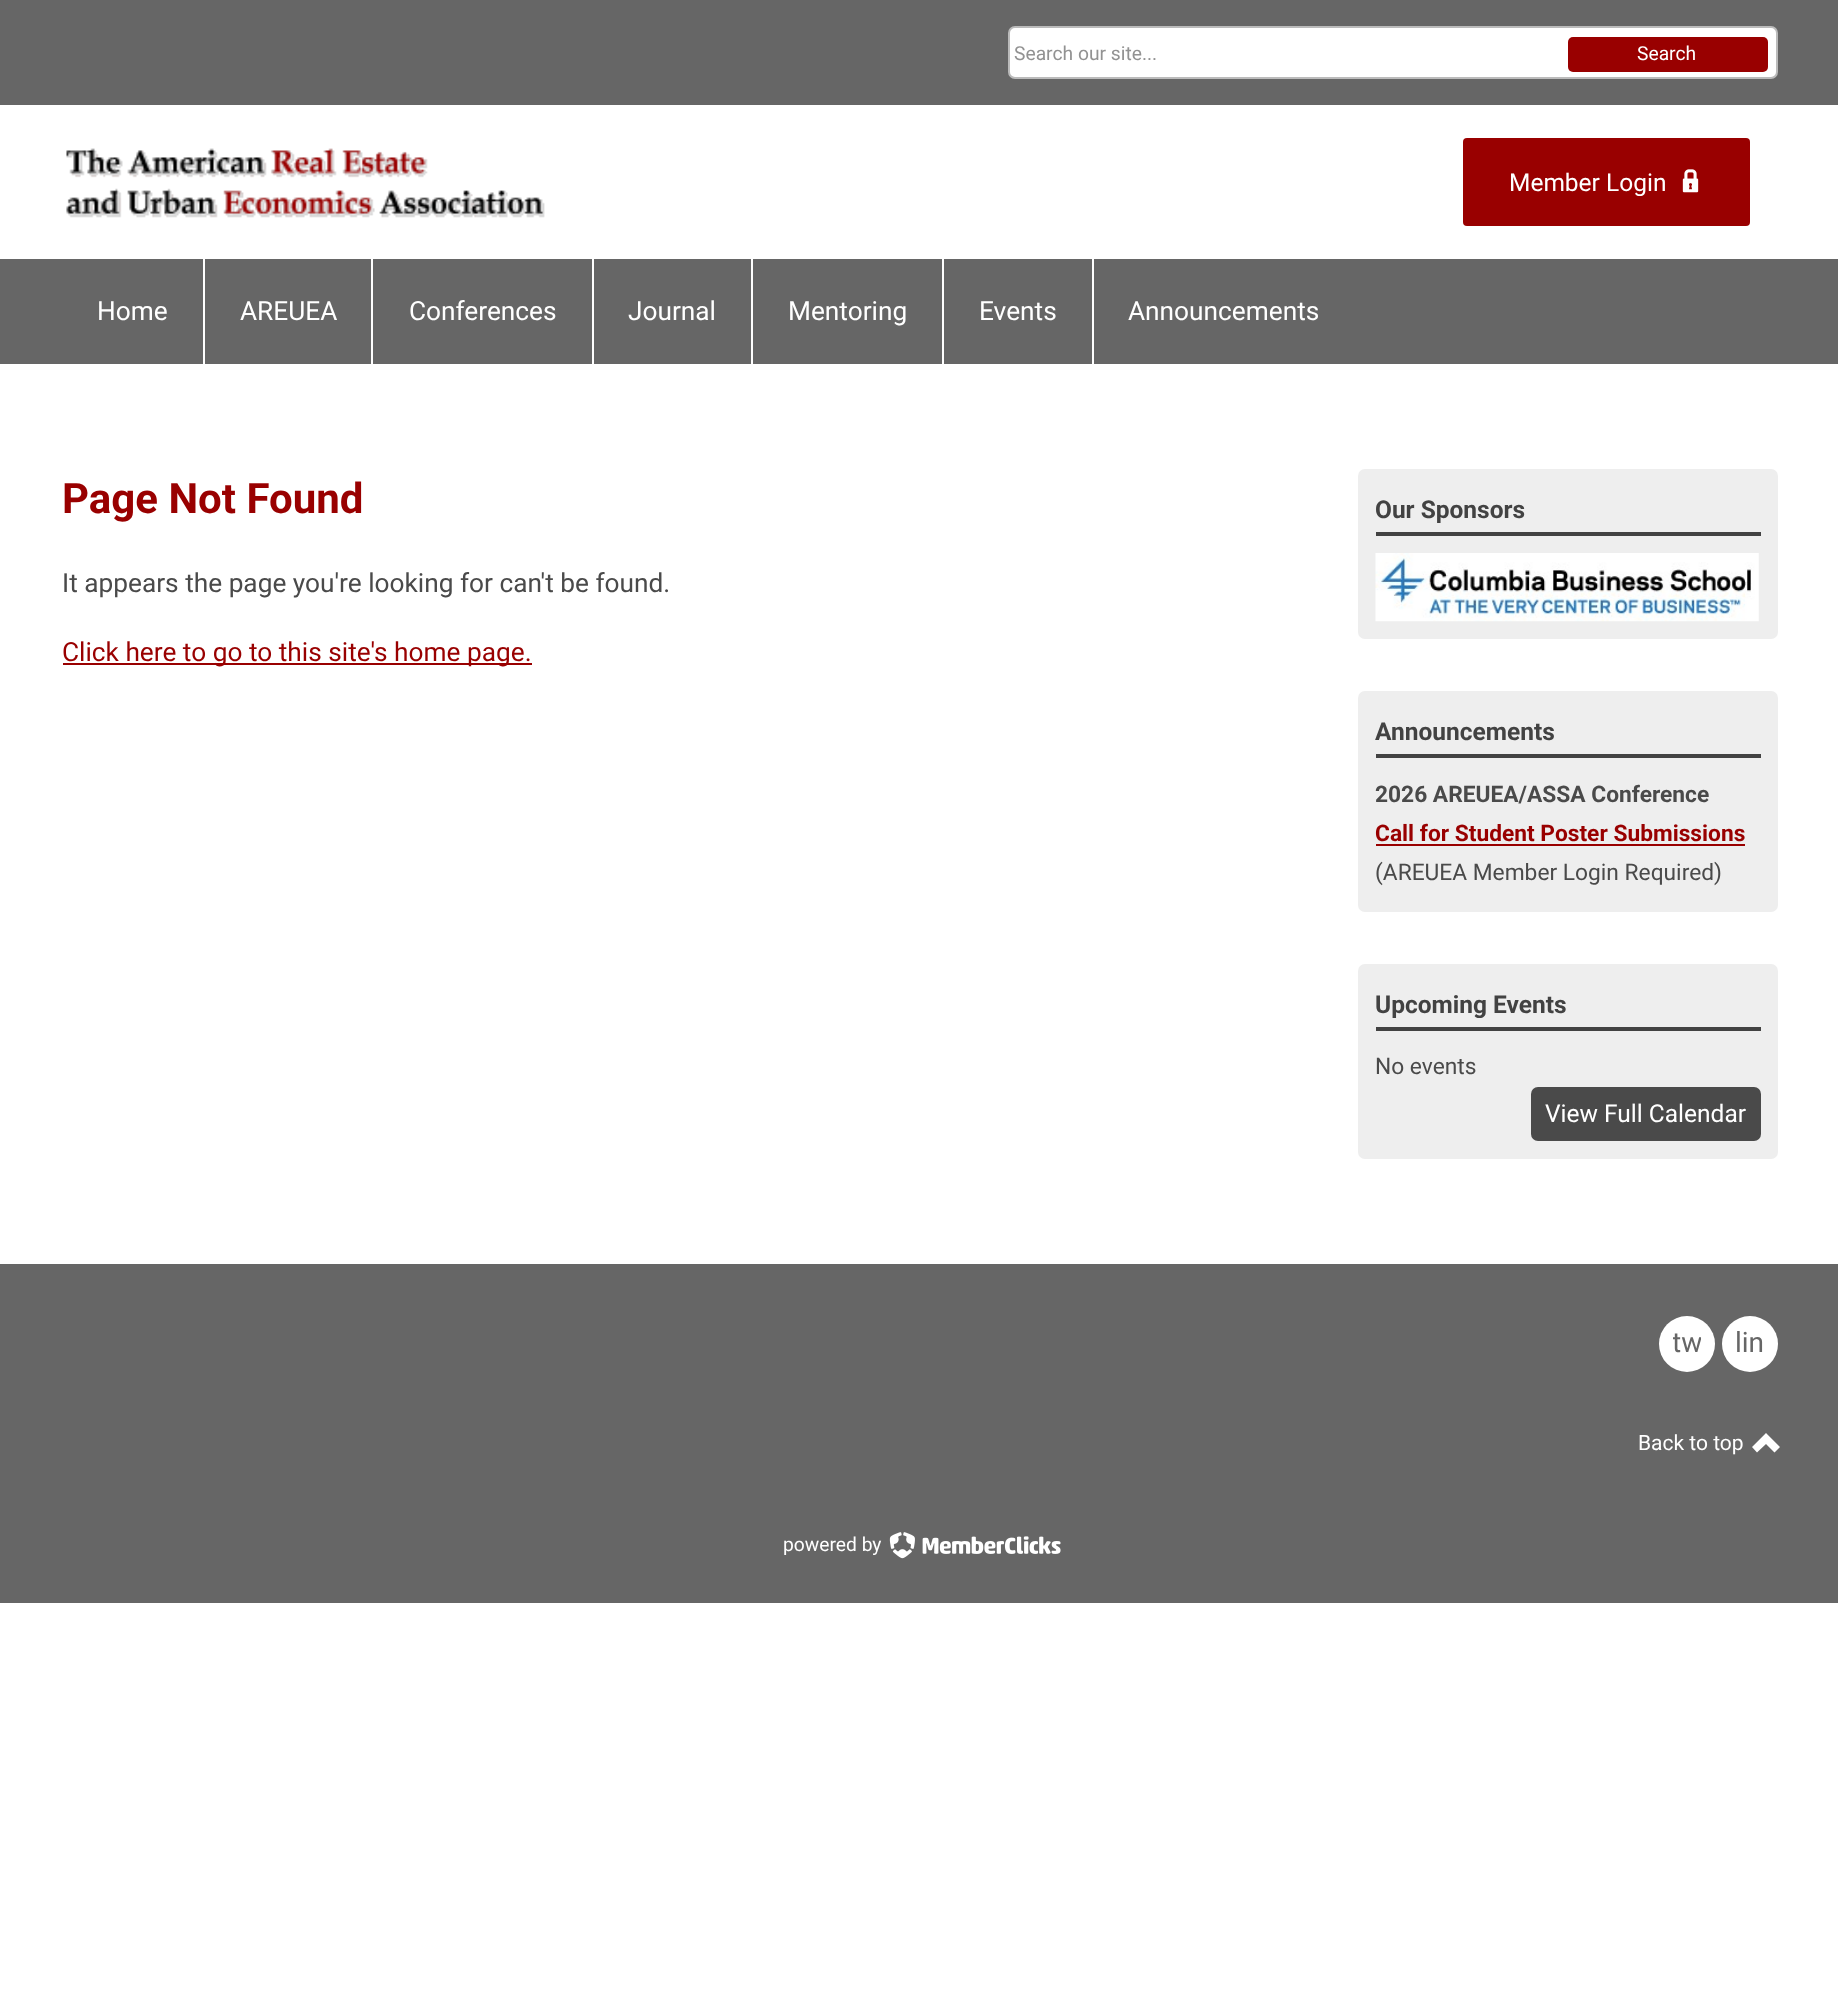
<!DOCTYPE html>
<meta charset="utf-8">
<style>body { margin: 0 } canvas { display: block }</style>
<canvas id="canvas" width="1838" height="1998"></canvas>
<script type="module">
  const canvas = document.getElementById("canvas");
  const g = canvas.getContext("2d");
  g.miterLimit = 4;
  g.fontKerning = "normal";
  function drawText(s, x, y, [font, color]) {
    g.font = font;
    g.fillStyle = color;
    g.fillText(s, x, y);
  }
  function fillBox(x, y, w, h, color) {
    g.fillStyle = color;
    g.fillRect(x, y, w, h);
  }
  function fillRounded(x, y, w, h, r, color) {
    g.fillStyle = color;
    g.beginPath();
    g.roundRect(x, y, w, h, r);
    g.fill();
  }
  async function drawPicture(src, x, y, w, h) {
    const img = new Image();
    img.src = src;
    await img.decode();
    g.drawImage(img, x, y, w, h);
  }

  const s1 = ["19.25px Roboto", "#929292"];
  const s2 = ["19.25px Roboto", "#FFFFFF"];
  const s3 = ["24.5px Roboto", "#FFFFFF"];
  const s4 = ["26.25px Roboto", "#FFFFFF"];
  const s5 = ["bold 42px Roboto", "#990000"];
  const s6 = ["26.25px Roboto", "#4A4A4A"];
  const s7 = ["26.25px Roboto", "#990000"];
  const s8 = ["bold 24.5px Roboto", "#424242"];
  const s9 = ["bold 22.75px Roboto", "#4A4A4A"];
  const s10 = ["bold 22.75px Roboto", "#990000"];
  const s11 = ["22.75px Roboto", "#4A4A4A"];
  const s12 = ["28px Roboto", "#666666"];
  const s13 = ["21px Roboto", "#FFFFFF"];

  fillBox(0, 0, 1838, 1998, "#FFFFFF");
  fillBox(0, 0, 1838, 105, "#666666");
  g.fillStyle = "#FFFFFF";
  g.beginPath();
  g.roundRect(1009, 27, 768, 51, 6);
  g.fill();
  g.strokeStyle = "#BBBBBB";
  g.lineWidth = 2;
  g.stroke();
  drawText("Search our site...", 1014, 60, s1);
  fillRounded(1568, 37, 200, 35, 5, "#990000");
  drawText("Search", 1637, 60, s2);
  await drawPicture("pic1.png", 66, 148, 479, 70);
  fillRounded(1463, 138, 287, 88, 4, "#990000");
  drawText("Member Login", 1509, 191, s3);
  await drawPicture("pic2.png", 1682, 169, 17, 24);
  fillBox(0, 259, 1838, 105, "#666666");
  drawText("Home", 97, 320, s4);
  fillBox(203, 259, 2, 105, "#FFFFFF");
  drawText("AREUEA", 240, 320, s4);
  fillBox(371, 259, 2, 105, "#FFFFFF");
  drawText("Conferences", 409, 320, s4);
  fillBox(592, 259, 2, 105, "#FFFFFF");
  drawText("Journal", 628, 320, s4);
  fillBox(751, 259, 2, 105, "#FFFFFF");
  drawText("Mentoring", 788, 320, s4);
  fillBox(942, 259, 2, 105, "#FFFFFF");
  drawText("Events", 979, 320, s4);
  fillBox(1092, 259, 2, 105, "#FFFFFF");
  drawText("Announcements", 1128, 320, s4);
  drawText("Page Not Found", 62, 513, s5);
  drawText("It appears the page you're looking for can't be found.", 62, 592, s6);
  fillBox(63, 663, 469, 2, "#990000");
  drawText("Click here to go to this site's home page.", 62, 661, s7);
  fillRounded(1358, 469, 420, 170, 7, "#EEEEEE");
  fillBox(1376, 532, 385, 4, "#424242");
  drawText("Our Sponsors", 1375, 518, s8);
  await drawPicture("pic3.png", 1375, 553, 384, 69);
  fillRounded(1358, 691, 420, 221, 7, "#EEEEEE");
  fillBox(1376, 754, 385, 4, "#424242");
  drawText("Announcements", 1375, 740, s8);
  drawText("2026 AREUEA/ASSA Conference", 1375, 802, s9);
  drawText("Call for Student Poster Submissions", 1375, 841, s10);
  fillBox(1376, 844, 369, 2, "#990000");
  drawText("(AREUEA Member Login Required)", 1375, 880, s11);
  fillRounded(1358, 964, 420, 195, 7, "#EEEEEE");
  fillBox(1376, 1027, 385, 4, "#424242");
  drawText("Upcoming Events", 1375, 1013, s8);
  drawText("No events", 1375, 1074, s11);
  fillRounded(1531, 1087, 230, 54, 7, "#4A4A4A");
  drawText("View Full Calendar", 1545, 1122, s3);
  fillBox(0, 1264, 1838, 339, "#666666");
  g.fillStyle = "#FFFFFF";
  g.beginPath();
  g.arc(1687, 1344, 28, 0, Math.PI * 2);
  g.fill();
  g.save();
  g.beginPath();
  g.rect(1673, 1330, 28, 28);
  g.clip();
  drawText("tw", 1672, 1352, s12);
  g.restore();
  g.beginPath();
  g.arc(1750, 1344, 28, 0, Math.PI * 2);
  g.fill();
  drawText("lin", 1735, 1352, s12);
  drawText("Back to top", 1638, 1450, s13);
  g.beginPath();
  g.moveTo(1752, 1447);
  g.lineTo(1757, 1452.5);
  g.lineTo(1766, 1444);
  g.lineTo(1774.5, 1452.5);
  g.lineTo(1780, 1447);
  g.lineTo(1766, 1433);
  g.closePath();
  g.fill();
  drawText("powered by", 783, 1551, s2);
  await drawPicture("pic4.png", 889, 1532, 26, 27);
  await drawPicture("pic5.png", 922, 1536, 139, 18);
</script>
